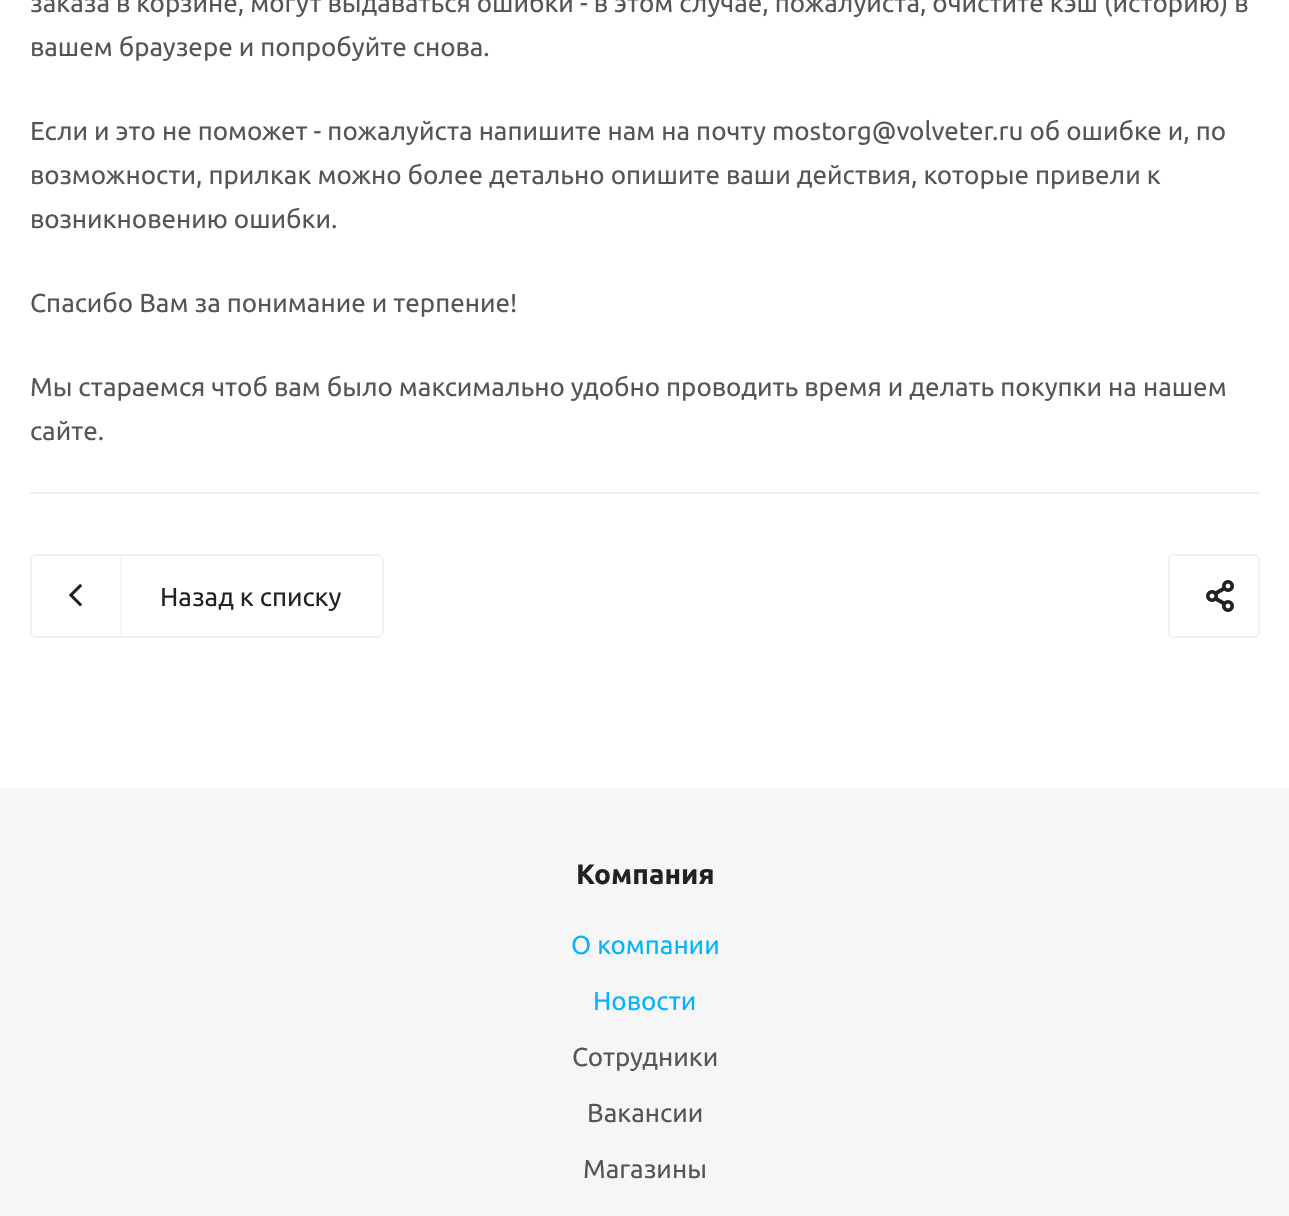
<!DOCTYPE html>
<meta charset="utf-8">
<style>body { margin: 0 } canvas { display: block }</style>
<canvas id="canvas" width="1289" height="1216"></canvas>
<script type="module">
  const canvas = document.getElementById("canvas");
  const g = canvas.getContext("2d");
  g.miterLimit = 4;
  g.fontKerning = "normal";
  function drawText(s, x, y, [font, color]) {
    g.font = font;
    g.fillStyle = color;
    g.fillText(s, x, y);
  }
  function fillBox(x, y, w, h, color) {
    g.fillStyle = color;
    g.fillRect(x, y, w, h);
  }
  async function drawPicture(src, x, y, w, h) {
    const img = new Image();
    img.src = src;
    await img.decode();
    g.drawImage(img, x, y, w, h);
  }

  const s1 = ["26px Ubuntu", "#555555"];
  const s2 = ["26px Ubuntu", "#222222"];
  const s3 = ["bold 28px Ubuntu", "#222222"];
  const s4 = ["26px Ubuntu", "#03B3FF"];

  fillBox(0, 0, 1289, 1216, "#FFFFFF");
  drawText("заказа в корзине, могут выдаваться ошибки - в этом случае, пожалуйста, очистите кэш (историю) в", 30, 12, s1);
  drawText("вашем браузере и попробуйте снова.", 30, 56, s1);
  drawText("Если и это не поможет - пожалуйста напишите нам на почту mostorg@volveter.ru об ошибке и, по", 30, 140, s1);
  drawText("возможности, прилкак можно более детально опишите ваши действия, которые привели к", 30, 184, s1);
  drawText("возникновению ошибки.", 30, 228, s1);
  drawText("Спасибо Вам за понимание и терпение!", 30, 312, s1);
  drawText("Мы стараемся чтоб вам было максимально удобно проводить время и делать покупки на нашем", 30, 396, s1);
  drawText("сайте.", 30, 440, s1);
  fillBox(30, 492, 1230, 2, "#F0F0F0");
  g.beginPath();
  g.roundRect(31, 555, 352, 82, 5);
  g.strokeStyle = "#F2F2F2";
  g.lineWidth = 2;
  g.stroke();
  await drawPicture("pic1.png", 69, 584, 13, 23);
  fillBox(120, 556, 2, 80, "#F5F5F5");
  drawText("Назад к списку", 160, 606, s2);
  g.beginPath();
  g.roundRect(1169, 555, 90, 82, 5);
  g.stroke();
  fillBox(1168, 556, 1, 80, "#F2F2F2");
  await drawPicture("pic2.png", 1206, 580, 28, 32);
  fillBox(0, 788, 1289, 428, "#F6F6F7");
  drawText("Компания", 576, 884, s3);
  drawText("О компании", 571, 954, s4);
  drawText("Новости", 593, 1010, s4);
  drawText("Сотрудники", 572, 1066, s1);
  drawText("Вакансии", 587, 1122, s1);
  drawText("Магазины", 583, 1178, s1);
</script>
